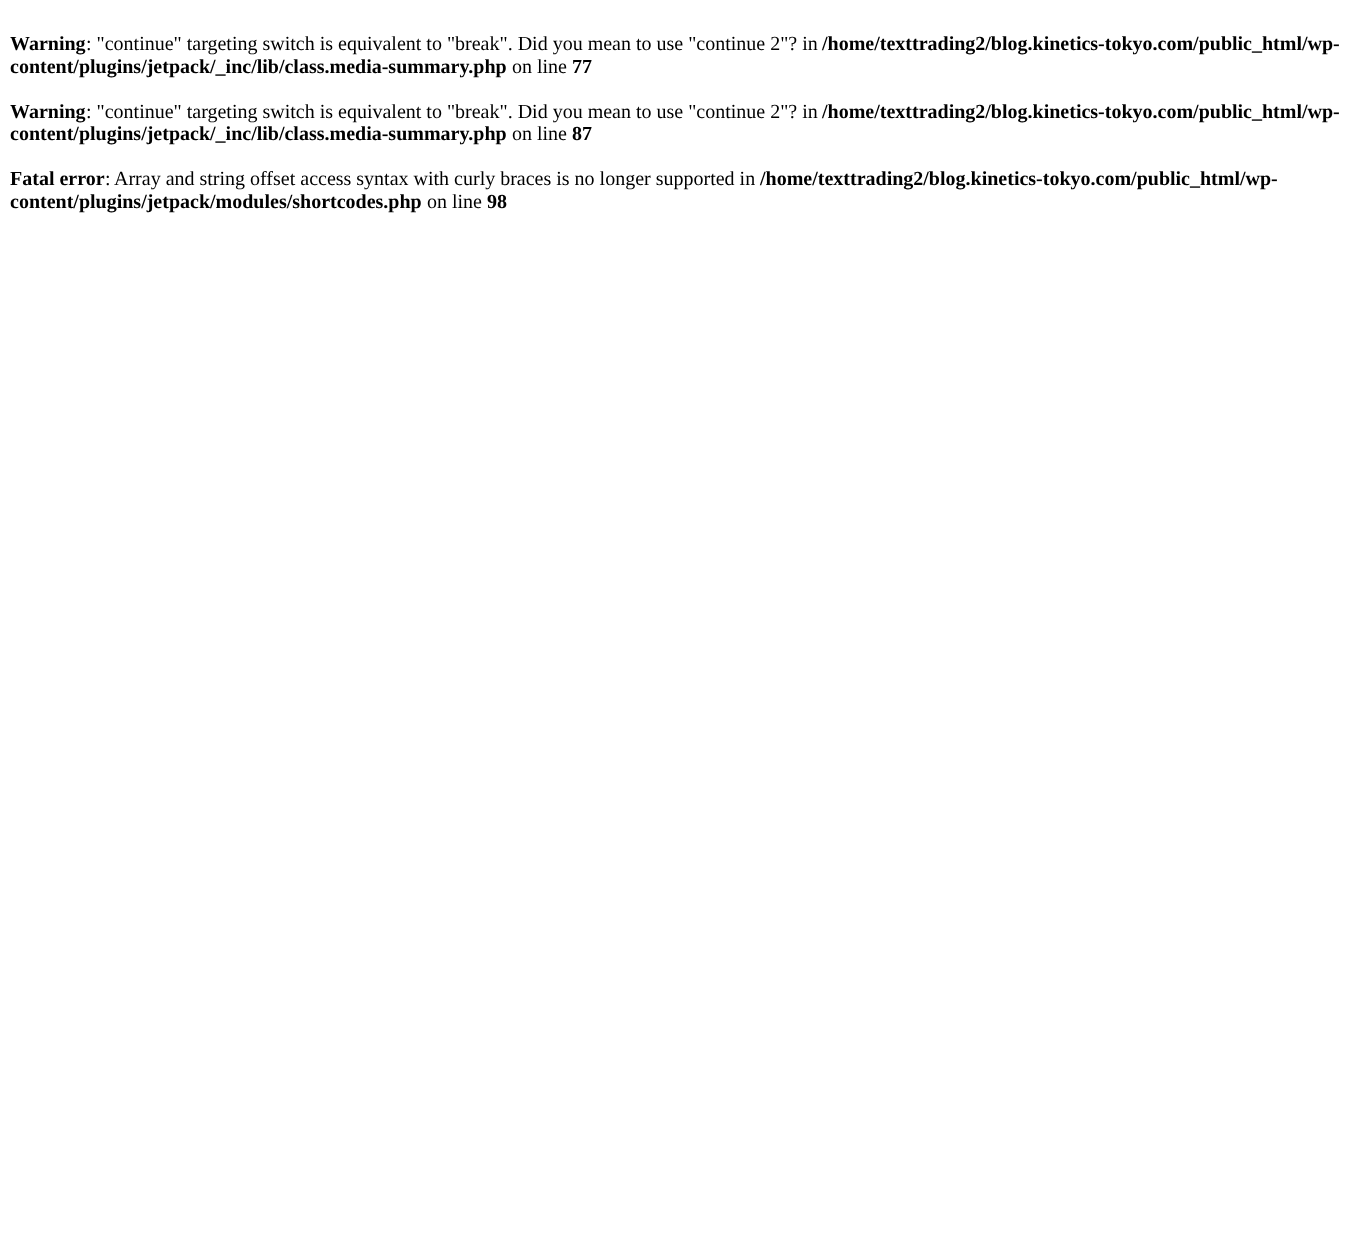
<!DOCTYPE html>
<meta charset="utf-8">
<style>body { margin: 0 } canvas { display: block }</style>
<canvas id="canvas" width="1363" height="1240"></canvas>
<script type="module">
  const canvas = document.getElementById("canvas");
  const g = canvas.getContext("2d");
  g.miterLimit = 4;
  g.fontKerning = "normal";
  function drawText(s, x, y, [font, color]) {
    g.font = font;
    g.fillStyle = color;
    g.fillText(s, x, y);
  }
  function fillBox(x, y, w, h, color) {
    g.fillStyle = color;
    g.fillRect(x, y, w, h);
  }

  const s1 = ["bold 20px Liberation Serif", "#000000"];
  const s2 = ["20px Liberation Serif", "#000000"];

  fillBox(0, 0, 1363, 1240, "#FFFFFF");
  drawText("Warning", 10, 50, s1);
  drawText(": \"continue\" targeting switch is equivalent to \"break\". Did you mean to use \"continue 2\"? in", 86, 50, s2);
  drawText("/home/texttrading2/blog.kinetics-tokyo.com/public_html/wp-", 822, 50, s1);
  drawText("content/plugins/jetpack/_inc/lib/class.media-summary.php", 10, 73, s1);
  drawText("on line", 512, 73, s2);
  drawText("77", 572, 73, s1);
  drawText("Warning", 10, 118, s1);
  drawText(": \"continue\" targeting switch is equivalent to \"break\". Did you mean to use \"continue 2\"? in", 86, 118, s2);
  drawText("/home/texttrading2/blog.kinetics-tokyo.com/public_html/wp-", 822, 118, s1);
  drawText("content/plugins/jetpack/_inc/lib/class.media-summary.php", 10, 140, s1);
  drawText("on line", 512, 140, s2);
  drawText("87", 572, 140, s1);
  drawText("Fatal error", 10, 185, s1);
  drawText(":", 105, 185, s2);
  drawText("Array and string offset access syntax with curly braces is no longer supported in", 114, 185, s2);
  drawText("/home/texttrading2/blog.kinetics-tokyo.com/public_html/wp-", 760, 185, s1);
  drawText("content/plugins/jetpack/modules/shortcodes.php", 10, 208, s1);
  drawText("on line", 427, 208, s2);
  drawText("98", 487, 208, s1);
</script>
